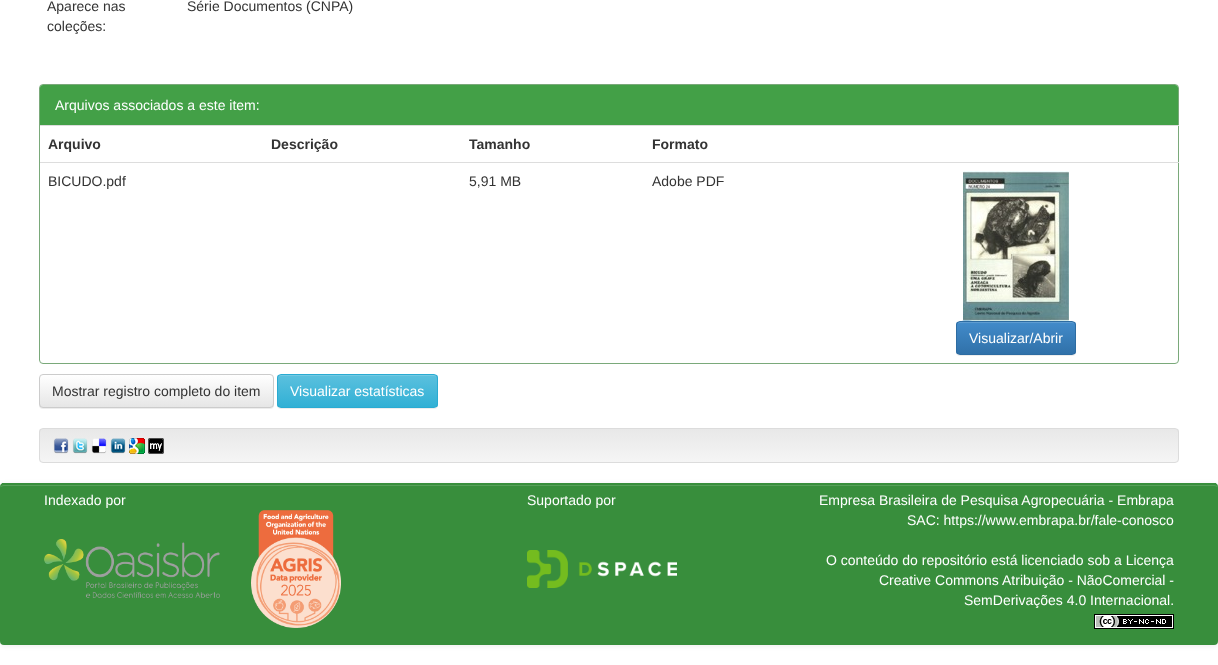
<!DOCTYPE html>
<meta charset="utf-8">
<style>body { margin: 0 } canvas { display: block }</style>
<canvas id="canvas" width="1218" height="665"></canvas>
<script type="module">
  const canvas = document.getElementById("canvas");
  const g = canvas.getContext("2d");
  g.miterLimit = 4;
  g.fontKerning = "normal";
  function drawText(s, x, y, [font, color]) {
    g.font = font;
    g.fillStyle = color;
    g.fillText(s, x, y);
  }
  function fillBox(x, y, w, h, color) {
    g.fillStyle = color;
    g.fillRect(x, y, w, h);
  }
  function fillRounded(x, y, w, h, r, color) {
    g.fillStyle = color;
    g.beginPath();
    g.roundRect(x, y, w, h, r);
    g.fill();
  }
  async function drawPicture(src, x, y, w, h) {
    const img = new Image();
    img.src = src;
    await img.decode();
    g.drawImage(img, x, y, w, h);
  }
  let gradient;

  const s1 = ["14px Liberation Sans", "#333333"];
  const s2 = ["14px Liberation Sans", "#FFFFFF"];
  const s3 = ["bold 14px Liberation Sans", "#333333"];

  fillBox(0, 0, 1218, 665, "#FFFFFF");
  drawText("Aparece nas", 47, 11, s1);
  drawText("coleções:", 47, 31, s1);
  drawText("Série Documentos (CNPA)", 187, 11, s1);
  g.beginPath();
  g.roundRect(39.5, 84.5, 1139, 279, 3.5);
  g.strokeStyle = "#7AA97A";
  g.stroke();
  g.fillStyle = "#43A047";
  g.beginPath();
  g.roundRect(40, 85, 1138, 40, [3, 3, 0, 0]);
  g.fill();
  drawText("Arquivos associados a este item:", 55, 110, s2);
  fillBox(40, 125, 1139, 1, "#DDDDDD");
  drawText("Arquivo", 48, 149, s3);
  drawText("Descrição", 271, 149, s3);
  drawText("Tamanho", 469, 149, s3);
  drawText("Formato", 652, 149, s3);
  drawText("BICUDO.pdf", 48, 186, s1);
  drawText("5,91 MB", 469, 186, s1);
  drawText("Adobe PDF", 652, 186, s1);
  fillBox(40, 162, 1139, 1, "#DDDDDD");
  await drawPicture("pic1.png", 963, 171, 106, 150);
  g.fillStyle = "rgba(0, 0, 0, 0.07)";
  g.filter = "blur(0.5px)";
  g.beginPath();
  g.roundRect(956, 322, 120, 34, 4);
  g.fill();
  g.filter = "none";
  g.save();
  g.beginPath();
  g.roundRect(956, 321, 120, 34, 4);
  g.clip();
  gradient = g.createLinearGradient(1016, 322, 1016, 354);
  gradient.addColorStop(0, "#428BCA");
  gradient.addColorStop(1, "#3071A9");
  g.fillStyle = gradient;
  g.fillRect(956, 322, 120, 32);
  g.restore();
  g.fillStyle = "#5E9CD1";
  g.beginPath();
  g.moveTo(960, 323);
  g.lineTo(1072, 323);
  g.bezierCurveTo(1074, 323, 1075, 324, 1075, 326);
  g.bezierCurveTo(1075, 324, 1074, 322, 1072, 322);
  g.lineTo(979, 322);
  g.bezierCurveTo(977, 322, 957, 317, 957, 326);
  g.bezierCurveTo(957, 324, 958, 323, 960, 323);
  g.closePath();
  g.fill();
  g.beginPath();
  g.roundRect(956.5, 321.5, 119, 33, 3.5);
  g.strokeStyle = "#2D6CA2";
  g.stroke();
  drawText("Visualizar/Abrir", 969, 343, s2);
  g.fillStyle = "rgba(0, 0, 0, 0.07)";
  g.filter = "blur(0.5px)";
  g.beginPath();
  g.roundRect(39, 375, 235, 34, 4);
  g.fill();
  g.filter = "none";
  g.save();
  g.beginPath();
  g.roundRect(39, 374, 235, 34, 4);
  g.clip();
  gradient = g.createLinearGradient(157, 375, 157, 407);
  gradient.addColorStop(0, "#FFFFFF");
  gradient.addColorStop(1, "#E6E6E6");
  g.fillStyle = gradient;
  g.fillRect(39, 375, 235, 32);
  g.restore();
  g.beginPath();
  g.roundRect(39.5, 374.5, 234, 33, 3.5);
  g.strokeStyle = "#CCCCCC";
  g.stroke();
  drawText("Mostrar registro completo do item", 52, 396, s1);
  g.fillStyle = "rgba(0, 0, 0, 0.07)";
  g.filter = "blur(0.5px)";
  g.beginPath();
  g.roundRect(277, 375, 161, 34, 4);
  g.fill();
  g.filter = "none";
  g.save();
  g.beginPath();
  g.roundRect(277, 374, 161, 34, 4);
  g.clip();
  gradient = g.createLinearGradient(358, 375, 358, 407);
  gradient.addColorStop(0, "#5BC0DE");
  gradient.addColorStop(1, "#31B0D5");
  g.fillStyle = gradient;
  g.fillRect(277, 375, 161, 32);
  g.restore();
  g.fillStyle = "#73C9E3";
  g.beginPath();
  g.moveTo(281, 376);
  g.lineTo(434, 376);
  g.bezierCurveTo(436, 376, 437, 377, 437, 379);
  g.bezierCurveTo(437, 377, 436, 375, 434, 375);
  g.lineTo(280, 375);
  g.bezierCurveTo(278, 375, 278, 377, 278, 379);
  g.bezierCurveTo(278, 377, 279, 376, 281, 376);
  g.closePath();
  g.fill();
  g.beginPath();
  g.roundRect(277.5, 374.5, 160, 33, 3.5);
  g.strokeStyle = "#2AABD2";
  g.stroke();
  drawText("Visualizar estatísticas", 290, 396, s2);
  g.save();
  g.beginPath();
  g.roundRect(39, 428, 1140, 35, 4);
  g.clip();
  gradient = g.createLinearGradient(609, 429, 609, 462);
  gradient.addColorStop(0, "#E8E8E8");
  gradient.addColorStop(1, "#F5F5F5");
  g.fillStyle = gradient;
  g.fillRect(39, 429, 1140, 33);
  g.restore();
  g.beginPath();
  g.roundRect(39.5, 428.5, 1139, 34, 3.5);
  g.strokeStyle = "#DCDCDC";
  g.stroke();
  await drawPicture("pic2.png", 53, 438, 16, 16);
  await drawPicture("pic3.png", 72, 438, 16, 16);
  await drawPicture("pic4.png", 91, 438, 16, 16);
  await drawPicture("pic5.png", 110, 438, 16, 16);
  await drawPicture("pic6.png", 129, 438, 16, 16);
  await drawPicture("pic7.png", 148, 438, 16, 16);
  g.fillStyle = "rgba(0, 0, 0, 0.07)";
  g.filter = "blur(2.5px)";
  g.beginPath();
  g.roundRect(0, 484, 1218, 162, 4);
  g.fill();
  g.filter = "none";
  fillRounded(0, 483, 1218, 162, 4, "#388E3C");
  g.fillStyle = "#569F59";
  g.beginPath();
  g.moveTo(4, 486);
  g.lineTo(1214, 486);
  g.bezierCurveTo(1216, 486, 1218, 487, 1218, 488);
  g.bezierCurveTo(1218, 486, 1216, 485, 1214, 485);
  g.lineTo(4, 485);
  g.bezierCurveTo(2, 485, 0, 486, 0, 488);
  g.bezierCurveTo(0, 487, 2, 486, 4, 486);
  g.closePath();
  g.fill();
  fillBox(2, 483, 1214, 1, "#388E3C");
  drawText("Indexado por", 44, 505, s2);
  await drawPicture("pic8.png", 44, 539, 176, 59);
  await drawPicture("pic9.png", 251, 510, 90, 118);
  drawText("Suportado por", 527, 505, s2);
  await drawPicture("pic10.png", 527, 550, 150, 38);
  drawText("Empresa Brasileira de Pesquisa Agropecuária - Embrapa", 819, 505, s2);
  drawText("SAC: https://www.embrapa.br/fale-conosco", 907, 525, s2);
  drawText("O conteúdo do repositório está licenciado sob a Licença", 826, 565, s2);
  drawText("Creative Commons", 879, 585, s2);
  drawText("Atribuição - NãoComercial -", 1002, 585, s2);
  drawText("SemDerivações 4.0 Internacional.", 964, 605, s2);
  await drawPicture("pic11.png", 1094, 614, 80, 15);
</script>
